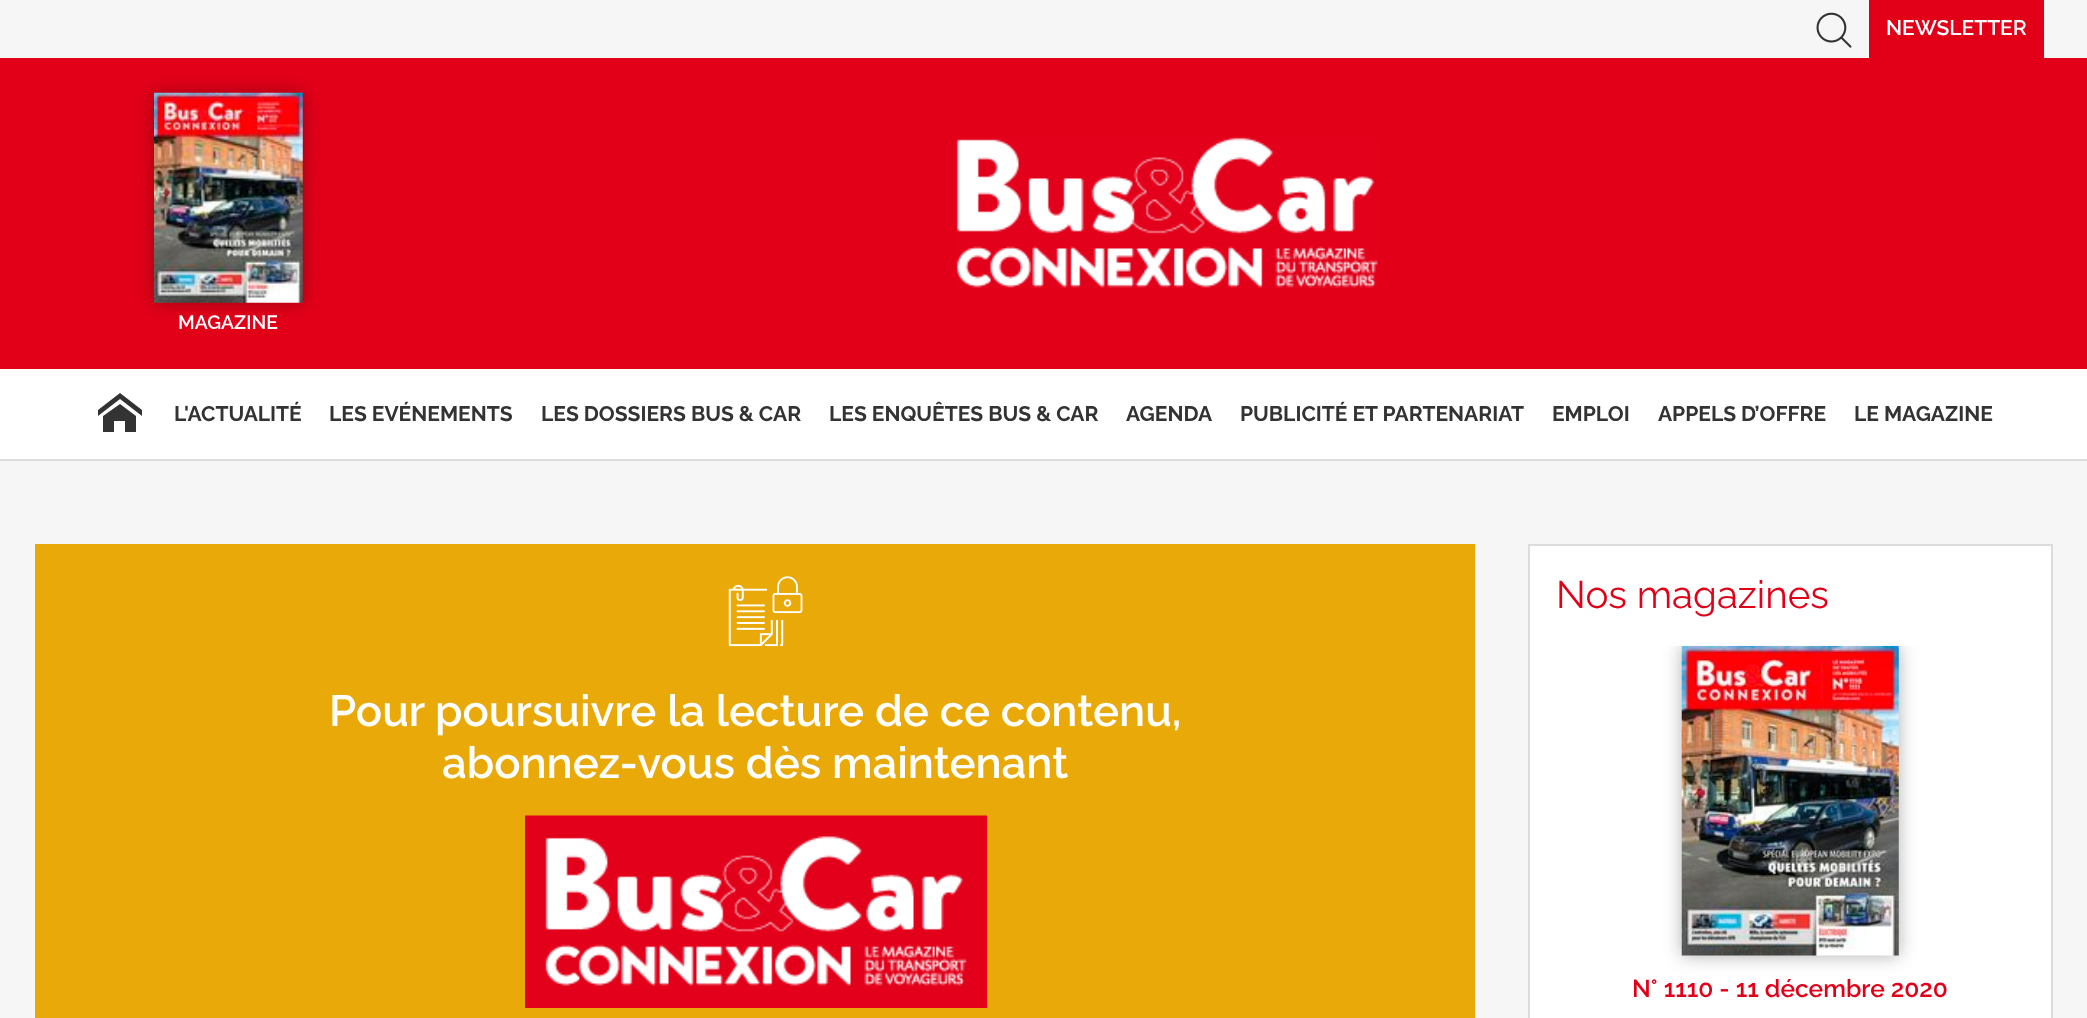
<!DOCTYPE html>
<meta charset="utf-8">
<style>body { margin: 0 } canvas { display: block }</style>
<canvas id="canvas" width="2087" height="1018"></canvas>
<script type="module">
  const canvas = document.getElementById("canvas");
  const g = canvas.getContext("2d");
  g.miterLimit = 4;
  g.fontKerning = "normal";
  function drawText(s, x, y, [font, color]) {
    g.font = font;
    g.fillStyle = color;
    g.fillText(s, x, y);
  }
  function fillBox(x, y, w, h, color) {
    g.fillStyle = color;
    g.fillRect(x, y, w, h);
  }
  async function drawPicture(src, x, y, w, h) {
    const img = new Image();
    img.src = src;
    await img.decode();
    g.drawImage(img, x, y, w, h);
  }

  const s1 = ["600 21px Raleway", "#FFFFFF"];
  const s2 = ["600 19.25px Raleway", "#FFFFFF"];
  const s3 = ["bold 21px Raleway", "#333333"];
  const s4 = ["600 43.75px Raleway", "#FFFFFF"];
  const s5 = ["38.5px Raleway", "#E20019"];
  const s6 = ["600 24.5px Raleway", "#E20019"];

  fillBox(0, 0, 2087, 1018, "#F6F6F6");
  fillBox(0, 58, 2087, 311, "#E20019");
  fillBox(0, 459, 2087, 2, "#DCDCDC");
  await drawPicture("pic1.png", 1816, 12, 36, 36);
  fillBox(1869, 0, 175, 58, "#E20019");
  drawText("NEWSLETTER", 1886, 35, s1);
  await drawPicture("pic2.png", 956, 137, 422, 151);
  g.fillStyle = "rgba(0, 0, 0, 0.3)";
  g.filter = "blur(9px)";
  g.beginPath();
  g.rect(154, 93, 149, 210);
  g.fill();
  g.filter = "none";
  await drawPicture("pic3.png", 154, 92, 149, 211);
  drawText("MAGAZINE", 178, 329, s2);
  fillBox(0, 369, 2087, 90, "#FFFFFF");
  g.fillStyle = "#333333";
  g.beginPath();
  g.moveTo(142, 416);
  g.lineTo(120, 399);
  g.lineTo(98, 416);
  g.lineTo(98, 410);
  g.lineTo(120, 393);
  g.lineTo(142, 410);
  g.closePath();
  g.moveTo(136, 416);
  g.lineTo(136, 432);
  g.lineTo(125, 432);
  g.lineTo(125, 421);
  g.lineTo(114, 421);
  g.lineTo(114, 432);
  g.lineTo(103, 432);
  g.lineTo(103, 416);
  g.lineTo(120, 404);
  g.closePath();
  g.fill();
  drawText("L'ACTUALITÉ", 174, 421, s3);
  drawText("LES EVÉNEMENTS", 329, 421, s3);
  drawText("LES DOSSIERS BUS & CAR", 541, 421, s3);
  drawText("LES ENQUÊTES BUS & CAR", 829, 421, s3);
  drawText("AGENDA", 1126, 421, s3);
  drawText("PUBLICITÉ ET PARTENARIAT", 1240, 421, s3);
  drawText("EMPLOI", 1552, 421, s3);
  drawText("APPELS D’OFFRE", 1658, 421, s3);
  drawText("LE MAGAZINE", 1854, 421, s3);
  fillBox(35, 544, 1440, 474, "#E9A908");
  await drawPicture("pic4.png", 728, 584, 56, 63);
  fillBox(767, 588, 17, 32, "#E9A908");
  await drawPicture("pic5.png", 772, 576, 31, 38);
  drawText("Pour poursuivre la lecture de ce contenu,", 329, 726, s4);
  drawText("abonnez-vous dès maintenant", 442, 778, s4);
  await drawPicture("pic6.png", 525, 815, 462, 193);
  g.beginPath();
  g.rect(1529, 545, 523, 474);
  g.fill();
  g.strokeStyle = "#DCDCDC";
  g.lineWidth = 2;
  g.stroke();
  drawText("Nos magazines", 1556, 608, s5);
  g.save();
  g.beginPath();
  g.rect(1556, 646, 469, 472);
  g.clip();
  g.fillStyle = "rgba(0, 0, 0, 0.3)";
  g.filter = "blur(9px)";
  g.beginPath();
  g.rect(1682, 646, 217, 310);
  g.fill();
  g.filter = "none";
  g.restore();
  await drawPicture("pic7.png", 1681, 645, 218, 311);
  drawText("N° 1110 - 11 décembre 2020", 1632, 997, s6);
</script>
